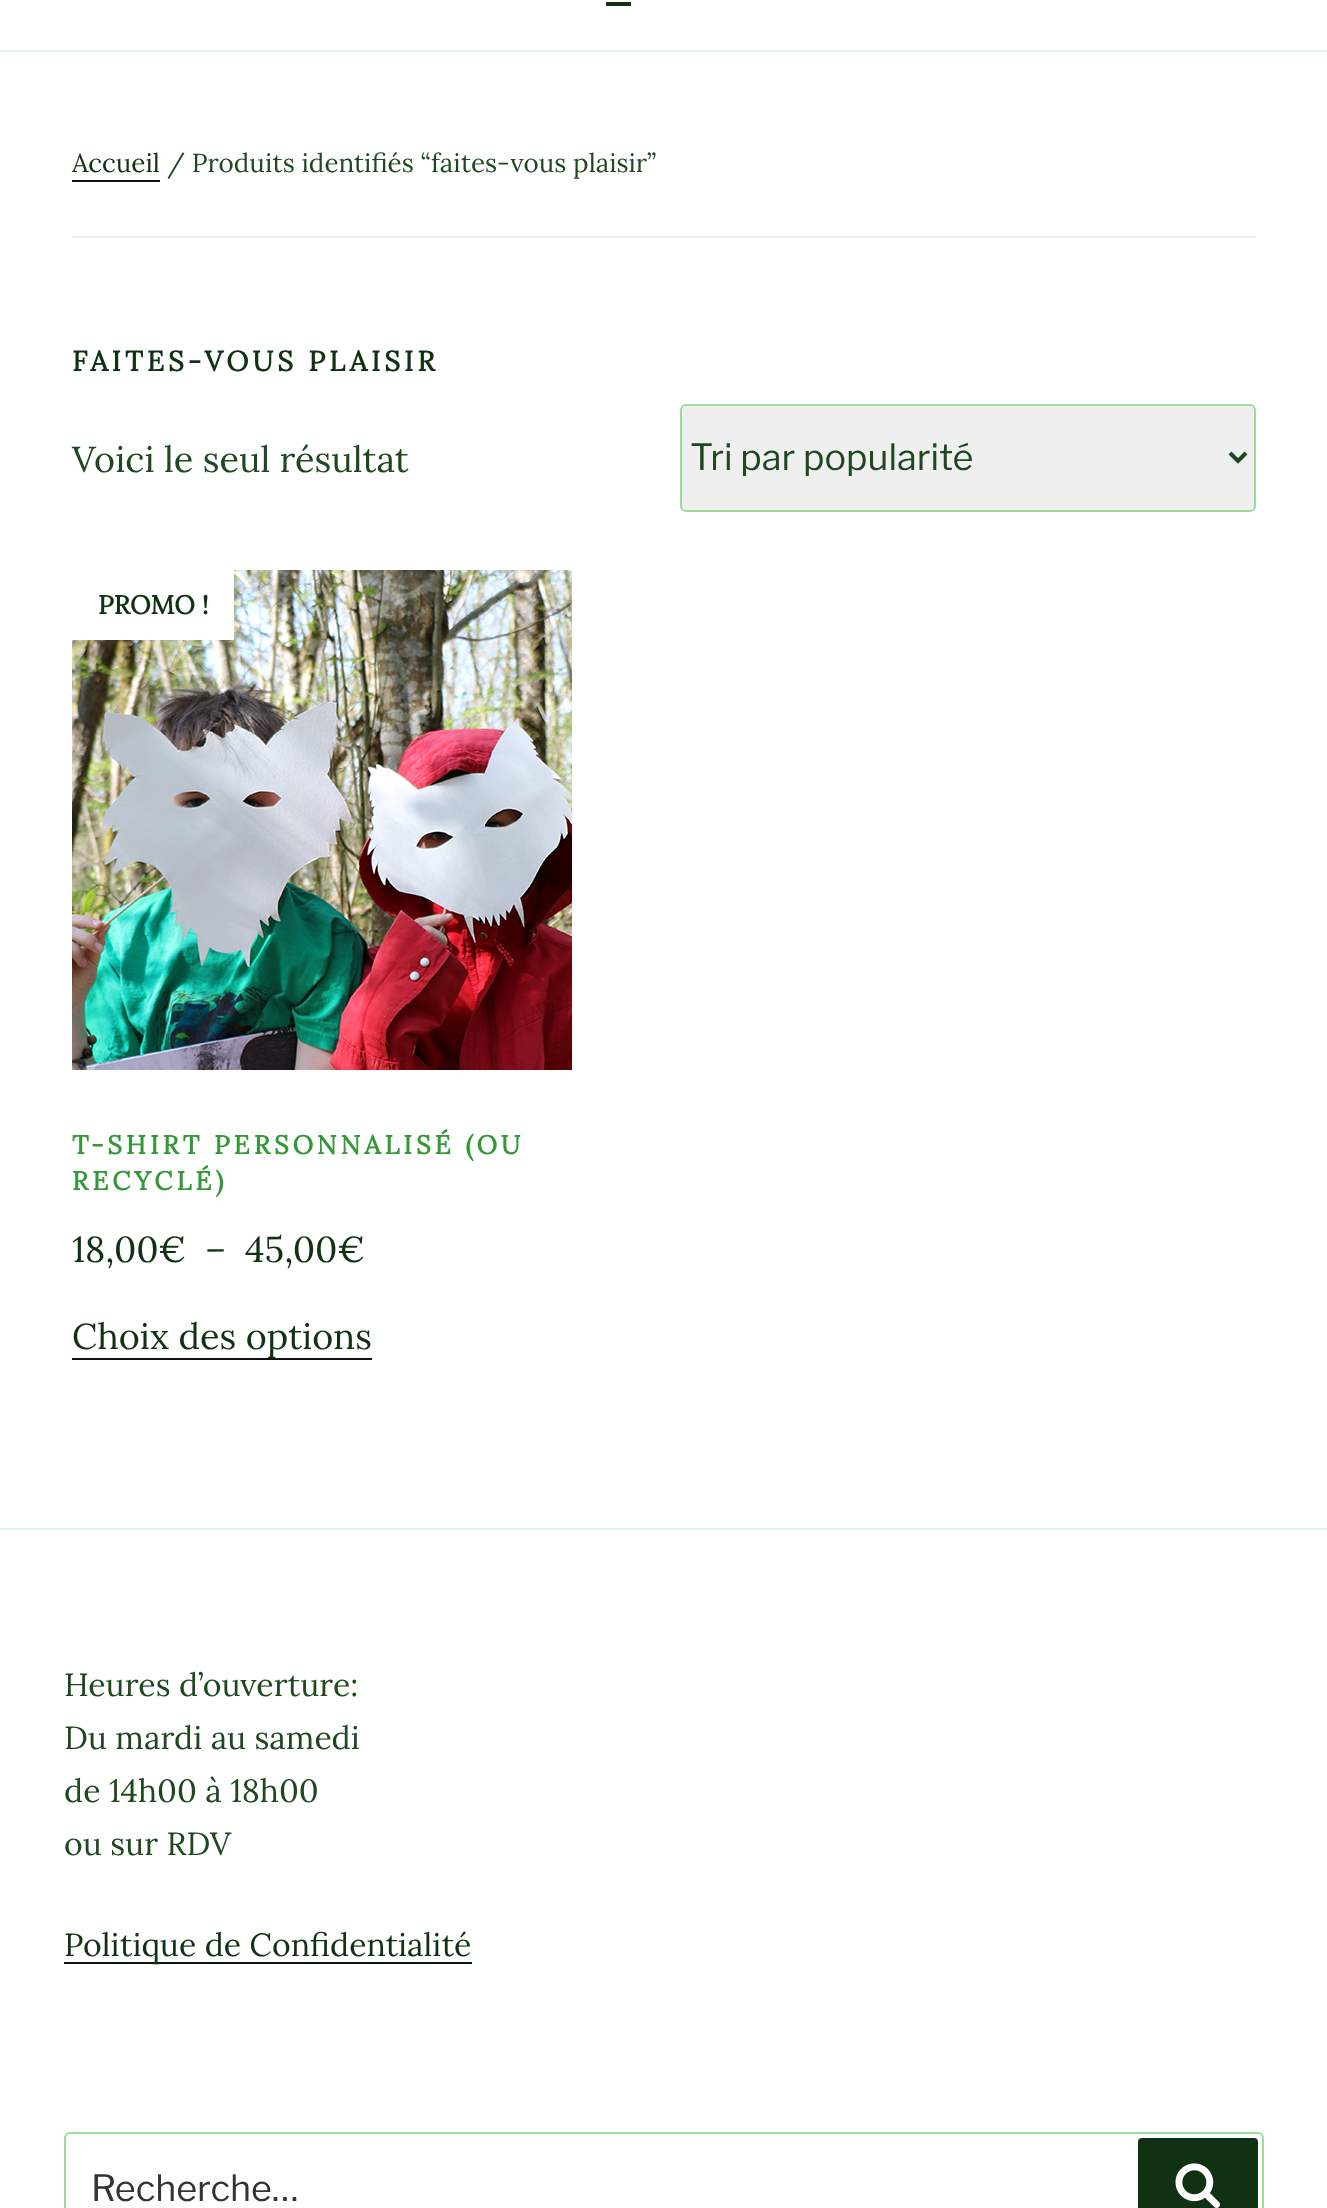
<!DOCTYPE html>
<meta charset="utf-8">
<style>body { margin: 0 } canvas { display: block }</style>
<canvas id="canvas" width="1327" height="2208"></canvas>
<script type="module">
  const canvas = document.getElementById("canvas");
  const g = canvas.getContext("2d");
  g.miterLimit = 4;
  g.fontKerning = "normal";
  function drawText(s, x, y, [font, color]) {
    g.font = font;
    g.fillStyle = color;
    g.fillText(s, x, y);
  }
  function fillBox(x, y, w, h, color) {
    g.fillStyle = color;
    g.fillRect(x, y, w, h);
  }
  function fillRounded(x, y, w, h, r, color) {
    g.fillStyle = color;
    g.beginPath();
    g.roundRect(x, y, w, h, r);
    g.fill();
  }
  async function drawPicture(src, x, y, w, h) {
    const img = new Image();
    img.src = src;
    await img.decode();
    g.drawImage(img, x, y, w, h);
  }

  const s1 = ["26px Lora", "#113212"];
  const s2 = ["26px Lora", "#1F4720"];
  const s3 = ["bold 28px Lora", "#113212"];
  const s4 = ["36px Lora", "#1F4720"];
  const s5 = ["100 36px Libre Franklin", "#1F4720"];
  const s6 = ["bold 26px Lora", "#113212"];
  const s7 = ["bold 26px Lora", "#339936"];
  const s8 = ["36px Lora", "#113212"];
  const s9 = ["32px Lora", "#1F4720"];
  const s10 = ["32px Lora", "#113212"];
  const s11 = ["100 36px Libre Franklin", "#333333"];

  fillBox(0, 0, 1327, 2208, "#FFFFFF");
  fillBox(0, 50, 1327, 2, "#E4F6E5");
  fillBox(606, 2, 25, 4, "#113212");
  fillBox(72, 236, 1184, 2, "#EEEEEE");
  drawText("Accueil", 72, 172, s1);
  fillBox(72, 180, 88, 2, "#0F0F0F");
  drawText("/ Produits identifiés “faites-vous plaisir”", 167, 172, s2);
  g.letterSpacing = "3.9px";
  drawText("FAITES-VOUS PLAISIR", 72, 371, s3);
  g.letterSpacing = "0px";
  drawText("Voici le seul résultat", 72, 472, s4);
  g.fillStyle = "#EFEFEF";
  g.beginPath();
  g.roundRect(681, 405, 574, 106, 5);
  g.fill();
  g.strokeStyle = "#98DD9A";
  g.lineWidth = 2;
  g.stroke();
  g.beginPath();
  g.moveTo(1230, 453);
  g.lineTo(1238, 461);
  g.lineTo(1246, 453);
  g.strokeStyle = "#1F4720";
  g.lineWidth = 4;
  g.stroke();
  drawText("Tri par popularité", 690, 470, s5);
  await drawPicture("pic1.png", 72, 570, 500, 500);
  fillBox(72, 570, 162, 70, "#FFFFFF");
  drawText("PROMO !", 98, 614, s6);
  g.letterSpacing = "3.9px";
  drawText("T-SHIRT PERSONNALISÉ (OU", 72, 1154, s7);
  drawText("RECYCLÉ)", 72, 1190, s7);
  g.letterSpacing = "0px";
  drawText("18,00€", 72, 1262, s8);
  drawText("–", 205, 1262, s8);
  drawText("45,00€", 245, 1262, s8);
  fillBox(72, 1358, 300, 2, "#0F0F0F");
  drawText("Choix des options", 72, 1349, s8);
  fillBox(0, 1528, 1327, 2, "#E4F6E5");
  drawText("Heures d’ouverture:", 64, 1696, s9);
  drawText("Du mardi au samedi", 64, 1749, s9);
  drawText("de 14h00 à 18h00", 64, 1802, s9);
  drawText("ou sur RDV", 64, 1855, s9);
  fillBox(64, 1962, 408, 2, "#081708");
  drawText("Politique de Confidentialité", 64, 1956, s10);
  g.beginPath();
  g.roundRect(65, 2133, 1198, 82, 5);
  g.strokeStyle = "#98DD9A";
  g.lineWidth = 2;
  g.stroke();
  drawText("Recherche…", 91, 2201, s11);
  fillRounded(1138, 2138, 120, 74, 4, "#113212");
  await drawPicture("pic2.png", 1175, 2163, 46, 45);
</script>
